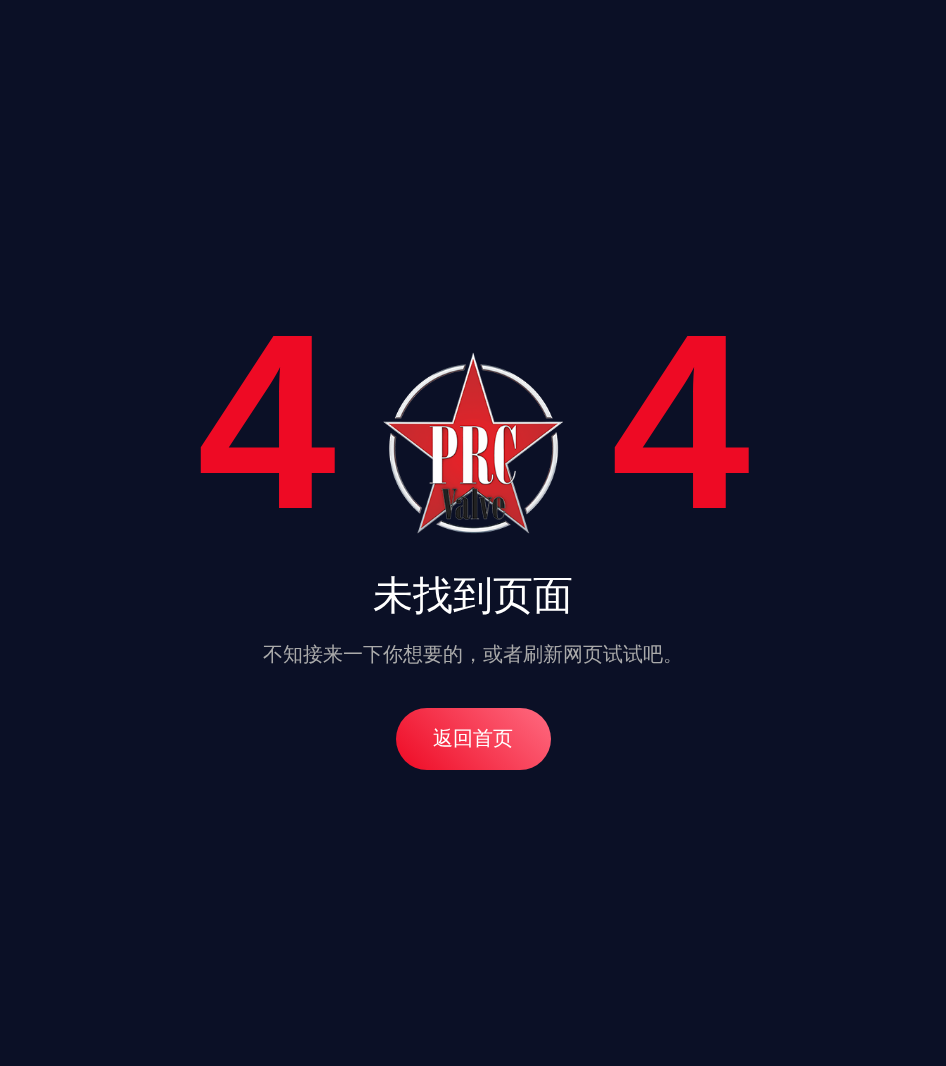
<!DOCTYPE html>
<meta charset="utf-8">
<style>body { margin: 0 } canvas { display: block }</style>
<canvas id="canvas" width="946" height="1066"></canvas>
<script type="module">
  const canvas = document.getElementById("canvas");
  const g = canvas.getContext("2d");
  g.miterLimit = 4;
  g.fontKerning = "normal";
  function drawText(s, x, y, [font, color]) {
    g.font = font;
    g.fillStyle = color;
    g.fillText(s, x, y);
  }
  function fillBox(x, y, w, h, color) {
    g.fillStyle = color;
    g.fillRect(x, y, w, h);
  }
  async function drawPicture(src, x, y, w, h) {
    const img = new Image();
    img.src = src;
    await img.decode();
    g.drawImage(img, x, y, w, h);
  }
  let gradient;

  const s1 = ["bold 250px Liberation Sans", "#EE0A24"];
  const s2 = ["500 40px WenQuanYi Zen Hei", "#FFFFFF"];
  const s3 = ["500 20px WenQuanYi Zen Hei", "#AAAAAA"];
  const s4 = ["500 20px WenQuanYi Zen Hei", "#FFFFFF"];

  fillBox(0, 0, 946, 1066, "#0B1026");
  drawText("4", 197, 508, s1);
  await drawPicture("pic1.png", 383, 352, 180, 182);
  drawText("4", 611, 508, s1);
  drawText("未找到页面", 373, 609, s2);
  drawText("不知接来一下你想要的，或者刷新网页试试吧。", 263, 661, s3);
  gradient = g.createLinearGradient(419, 793, 528, 684);
  gradient.addColorStop(0, "#EE0A24");
  gradient.addColorStop(1, "#FF6B81");
  g.fillStyle = gradient;
  g.beginPath();
  g.roundRect(396, 708, 155, 62, 31);
  g.fill();
  drawText("返回首页", 433, 745, s4);
</script>
